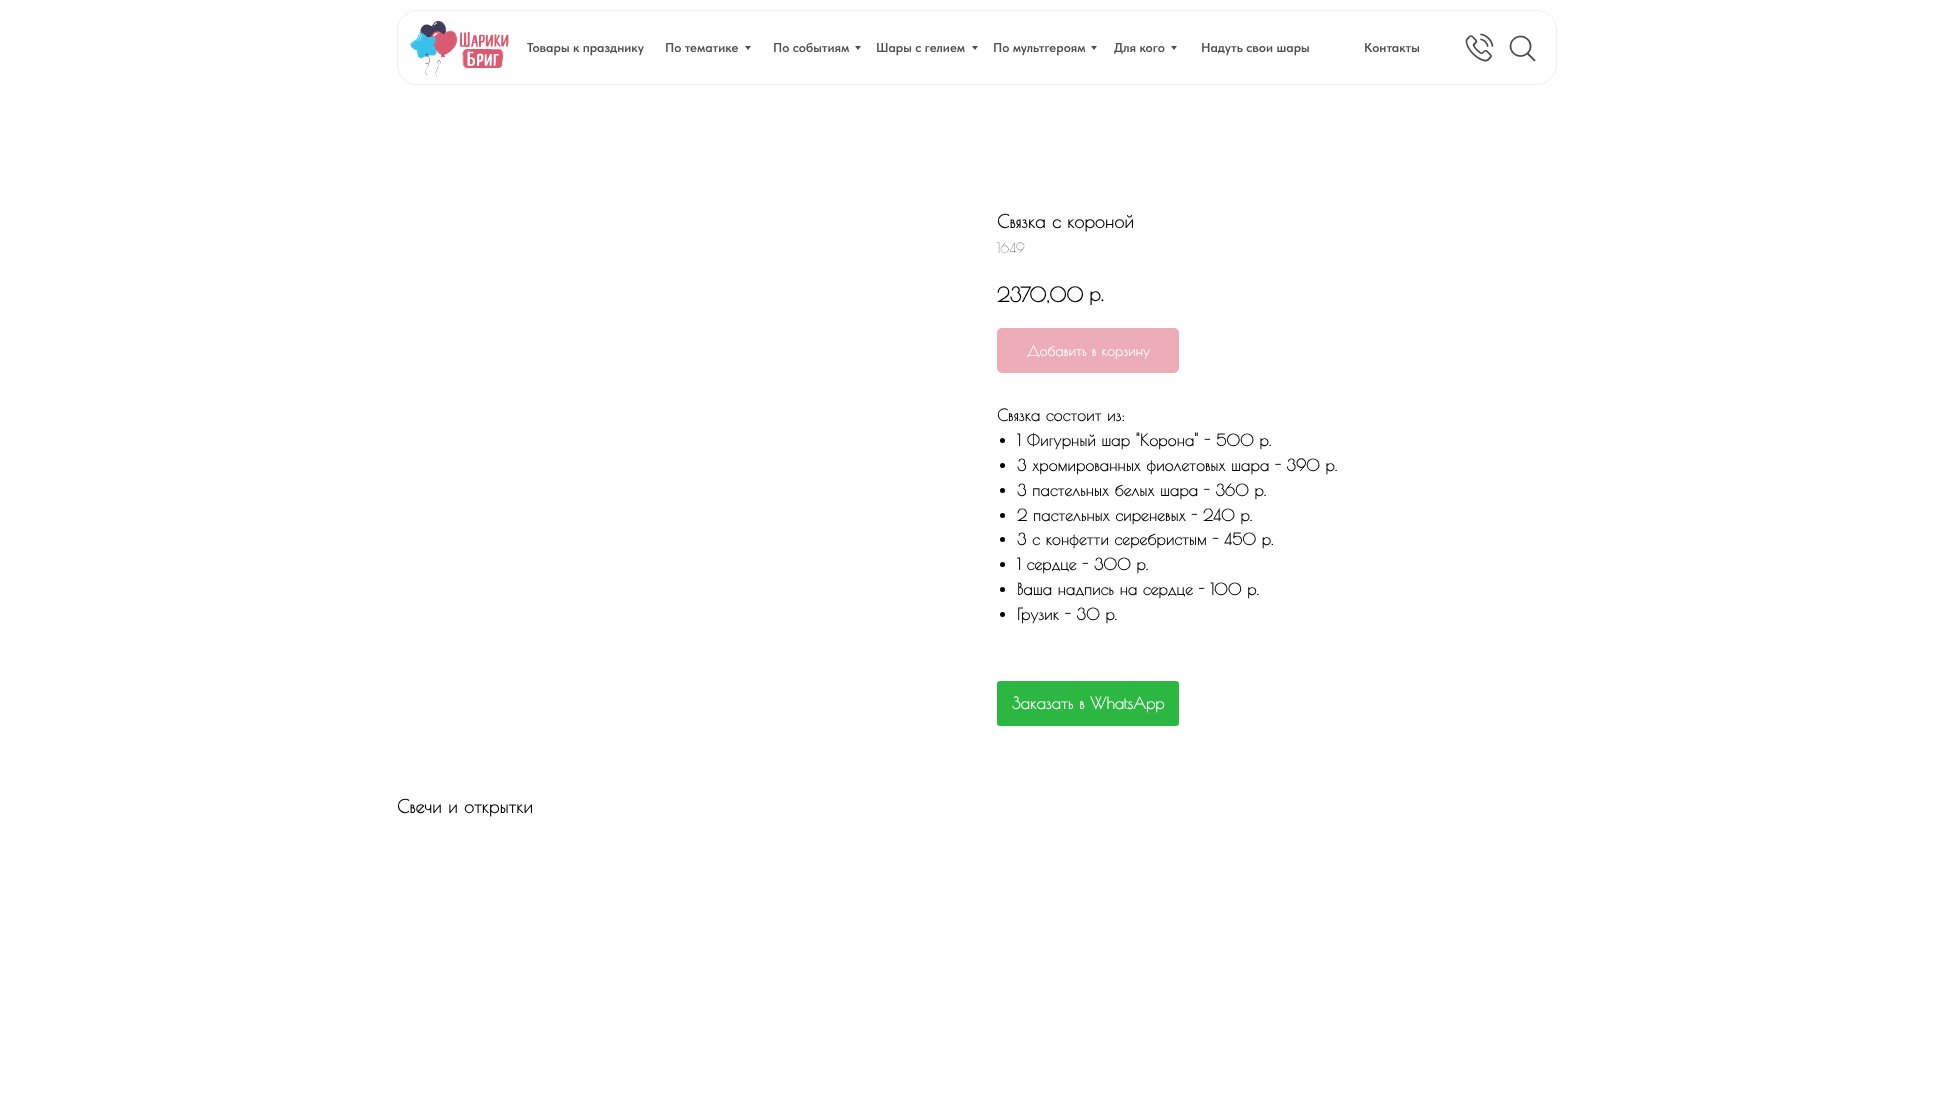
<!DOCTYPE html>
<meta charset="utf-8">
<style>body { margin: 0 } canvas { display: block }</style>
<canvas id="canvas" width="1953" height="1095"></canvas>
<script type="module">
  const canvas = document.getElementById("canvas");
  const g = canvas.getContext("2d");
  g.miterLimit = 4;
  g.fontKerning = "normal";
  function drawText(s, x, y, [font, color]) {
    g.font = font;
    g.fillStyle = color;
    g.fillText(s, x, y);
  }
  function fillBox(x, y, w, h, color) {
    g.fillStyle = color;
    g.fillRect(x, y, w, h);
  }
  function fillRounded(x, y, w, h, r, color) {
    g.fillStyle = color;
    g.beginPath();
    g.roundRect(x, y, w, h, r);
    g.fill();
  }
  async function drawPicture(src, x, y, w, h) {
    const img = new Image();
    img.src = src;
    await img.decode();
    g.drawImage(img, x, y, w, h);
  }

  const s1 = ["600 13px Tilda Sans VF", "#4E4E4E"];
  const s2 = ["bold 18px Poiret One", "#000000"];
  const s3 = ["14px Poiret One", "#777777"];
  const s4 = ["bold 20px Poiret One", "#000000"];
  const s5 = ["bold 14px Poiret One", "#FFFFFF"];
  const s6 = ["bold 16px Poiret One", "#000000"];
  const s7 = ["bold 16px Poiret One", "#FFFFFF"];

  fillBox(0, 0, 1953, 1095, "#FFFFFF");
  g.beginPath();
  g.roundRect(397.5, 10.5, 1159, 74, 19.5);
  g.strokeStyle = "#F0F0F0";
  g.stroke();
  await drawPicture("pic1.png", 410, 20, 99, 58);
  drawText("Товары к празднику", 527, 52, s1);
  drawText("По тематике", 665, 52, s1);
  g.beginPath();
  g.moveTo(745, 46);
  g.lineTo(751, 46);
  g.lineTo(748, 50);
  g.closePath();
  g.fill();
  drawText("По событиям", 773, 52, s1);
  g.beginPath();
  g.moveTo(855, 46);
  g.lineTo(861, 46);
  g.lineTo(858, 50);
  g.closePath();
  g.fill();
  drawText("Шары с гелием", 876, 52, s1);
  g.beginPath();
  g.moveTo(972, 46);
  g.lineTo(978, 46);
  g.lineTo(975, 50);
  g.closePath();
  g.fill();
  drawText("По мультгероям", 993, 52, s1);
  g.beginPath();
  g.moveTo(1091, 46);
  g.lineTo(1097, 46);
  g.lineTo(1094, 50);
  g.closePath();
  g.fill();
  drawText("Для кого", 1114, 52, s1);
  g.beginPath();
  g.moveTo(1171, 46);
  g.lineTo(1177, 46);
  g.lineTo(1174, 50);
  g.closePath();
  g.fill();
  drawText("Надуть свои шары", 1201, 52, s1);
  drawText("Контакты", 1364, 52, s1);
  await drawPicture("pic2.png", 1465, 33, 29, 29);
  await drawPicture("pic3.png", 1509, 35, 27, 27);
  drawText("Связка с короной", 997, 228, s2);
  drawText("1649", 997, 253, s3);
  drawText("2370,00", 997, 302, s4);
  drawText("р.", 1089, 301, s4);
  fillRounded(997, 328, 182, 45, 5, "#ECADB9");
  drawText("Добавить в корзину", 1027, 356, s5);
  drawText("Связка состоит из:", 997, 421, s6);
  g.beginPath();
  g.arc(1002.5, 440.5, 2.5, 0, Math.PI * 2);
  g.fill();
  drawText("1 Фигурный шар \"Корона\" - 500 р.", 1017, 446, s6);
  g.beginPath();
  g.arc(1002.5, 465.5, 2.5, 0, Math.PI * 2);
  g.fill();
  drawText("3 хромированных фиолетовых шара - 390 р.", 1017, 471, s6);
  g.beginPath();
  g.arc(1002.5, 490.5, 2.5, 0, Math.PI * 2);
  g.fill();
  drawText("3 пастельных белых шара - 360 р.", 1017, 496, s6);
  g.beginPath();
  g.arc(1002.5, 515.5, 2.5, 0, Math.PI * 2);
  g.fill();
  drawText("2 пастельных сиреневых - 240 р.", 1017, 521, s6);
  g.beginPath();
  g.arc(1002.5, 539.5, 2.5, 0, Math.PI * 2);
  g.fill();
  drawText("3 с конфетти серебристым - 450 р.", 1017, 545, s6);
  g.beginPath();
  g.arc(1002.5, 564.5, 2.5, 0, Math.PI * 2);
  g.fill();
  drawText("1 сердце - 300 р.", 1017, 570, s6);
  g.beginPath();
  g.arc(1002.5, 589.5, 2.5, 0, Math.PI * 2);
  g.fill();
  drawText("Ваша надпись на сердце - 100 р.", 1017, 595, s6);
  g.beginPath();
  g.arc(1002.5, 614.5, 2.5, 0, Math.PI * 2);
  g.fill();
  drawText("Грузик - 30 р.", 1017, 620, s6);
  fillRounded(997, 681, 182, 45, 3, "#2BB742");
  drawText("Заказать в WhatsApp", 1012, 709, s7);
  drawText("Свечи и открытки", 397, 813, s2);
</script>
